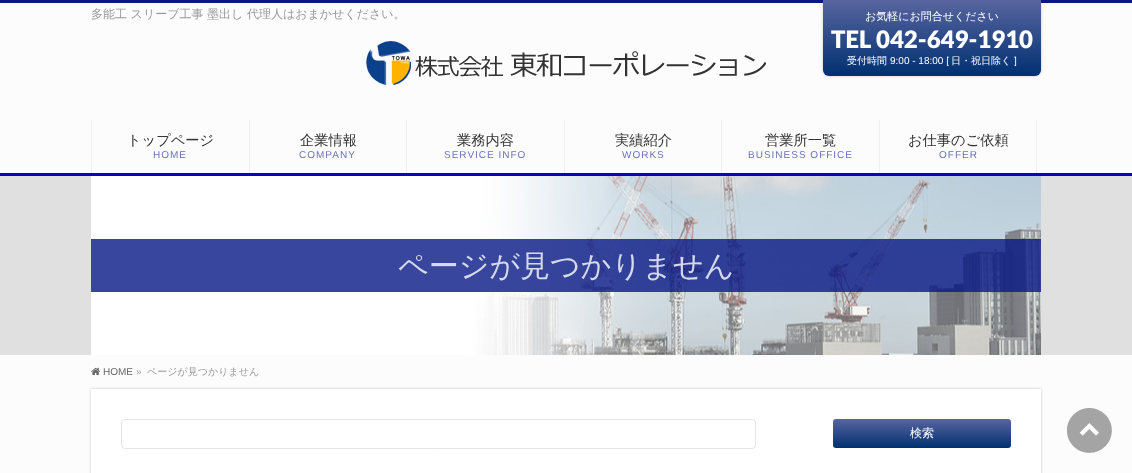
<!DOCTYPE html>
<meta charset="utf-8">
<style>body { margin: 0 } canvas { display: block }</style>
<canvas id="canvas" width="1132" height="473"></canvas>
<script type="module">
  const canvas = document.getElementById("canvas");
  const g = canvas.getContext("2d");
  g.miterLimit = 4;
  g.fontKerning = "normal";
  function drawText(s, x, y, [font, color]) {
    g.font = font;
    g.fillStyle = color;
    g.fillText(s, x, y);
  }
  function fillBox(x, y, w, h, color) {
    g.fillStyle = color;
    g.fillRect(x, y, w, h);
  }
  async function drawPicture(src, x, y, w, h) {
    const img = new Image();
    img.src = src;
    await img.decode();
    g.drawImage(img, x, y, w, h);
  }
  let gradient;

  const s1 = ["500 12px WenQuanYi Zen Hei", "#999999"];
  const s2 = ["500 11px WenQuanYi Zen Hei", "#FFFFFF"];
  const s3 = ["900 24px Lato", "#FFFFFF"];
  const s4 = ["500 10px WenQuanYi Zen Hei", "#FFFFFF"];
  const s5 = ["10px Liberation Sans", "#FFFFFF"];
  const s6 = ["500 14.25px WenQuanYi Zen Hei", "#333333"];
  const s7 = ["10px Liberation Sans", "#6973B4"];
  const s8 = ["500 30px WenQuanYi Zen Hei", "#D6D9EA"];
  const s9 = ["10px Liberation Sans", "#666666"];
  const s10 = ["10px Liberation Sans", "#999999"];
  const s11 = ["500 10px WenQuanYi Zen Hei", "#999999"];
  const s12 = ["500 12px WenQuanYi Zen Hei", "#FFFFFF"];

  fillBox(0, 0, 1132, 473, "#E0E0E0");
  fillBox(0, 0, 1132, 3, "#071884");
  fillBox(0, 3, 1132, 170, "#FCFCFC");
  drawText("多能工 スリーブ工事 墨出し 代理人はおまかせください。", 91, 18, s1);
  await drawPicture("pic1.png", 366, 41, 400, 44);
  g.fillStyle = "rgba(0, 0, 0, 0.2)";
  g.filter = "blur(1.5px)";
  g.beginPath();
  g.roundRect(823, 0, 218, 76, 6);
  g.fill();
  g.filter = "none";
  gradient = g.createLinearGradient(932, 0, 932, 76);
  gradient.addColorStop(0, "#5865A0");
  gradient.addColorStop(1, "#003070");
  g.fillStyle = gradient;
  g.beginPath();
  g.roundRect(823, 0, 218, 76, [0, 0, 6, 6]);
  g.fill();
  drawText("お気軽にお問合せください", 865, 20, s2);
  drawText("TEL 042-649-1910", 831, 48, s3);
  drawText("受付時間", 847, 64, s4);
  drawText("9:00 - 18:00 [", 890, 64, s5);
  drawText("日・祝日除く", 951, 64, s4);
  drawText("]", 1014, 64, s5);
  fillBox(0, 173, 1132, 3, "#0B05B5");
  fillBox(91, 120, 1, 53, "#EFEFEF");
  fillBox(249, 120, 1, 53, "#EFEFEF");
  drawText("トップページ", 127, 145, s6);
  g.letterSpacing = "1px";
  drawText("HOME", 153, 158, s7);
  fillBox(406, 120, 1, 53, "#EFEFEF");
  g.letterSpacing = "0px";
  drawText("企業情報", 300, 145, s6);
  g.letterSpacing = "1px";
  drawText("COMPANY", 299, 158, s7);
  fillBox(564, 120, 1, 53, "#EFEFEF");
  g.letterSpacing = "0px";
  drawText("業務内容", 457, 145, s6);
  g.letterSpacing = "1px";
  drawText("SERVICE INFO", 444, 158, s7);
  fillBox(721, 120, 1, 53, "#EFEFEF");
  g.letterSpacing = "0px";
  drawText("実績紹介", 615, 145, s6);
  g.letterSpacing = "1px";
  drawText("WORKS", 622, 158, s7);
  fillBox(879, 120, 1, 53, "#EFEFEF");
  g.letterSpacing = "0px";
  drawText("営業所一覧", 765, 145, s6);
  g.letterSpacing = "1px";
  drawText("BUSINESS OFFICE", 748, 158, s7);
  fillBox(1036, 120, 1, 53, "#EFEFEF");
  g.letterSpacing = "0px";
  drawText("お仕事のご依頼", 908, 145, s6);
  g.letterSpacing = "1px";
  drawText("OFFER", 939, 158, s7);
  await drawPicture("pic2.png", 91, 176, 950, 179);
  fillBox(91, 239, 950, 53, "rgba(7, 24, 132, 0.8)");
  g.letterSpacing = "0px";
  drawText("ページが見つかりません", 398, 276, s8);
  fillBox(0, 355, 1132, 118, "#FCFCFC");
  await drawPicture("pic3.png", 91, 367, 10, 8);
  drawText("HOME", 103, 375, s9);
  drawText("»", 136, 375, s10);
  drawText("ページが見つかりません", 147, 375, s11);
  g.fillStyle = "rgba(0, 0, 0, 0.2)";
  g.filter = "blur(1.5px)";
  g.beginPath();
  g.rect(91, 389, 950, 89);
  g.fill();
  g.filter = "none";
  fillBox(91, 389, 950, 84, "#FFFFFF");
  g.beginPath();
  g.roundRect(121.5, 419.5, 634, 29, 3.5);
  g.strokeStyle = "#E5E5E5";
  g.stroke();
  gradient = g.createLinearGradient(922, 419, 922, 448);
  gradient.addColorStop(0, "#5865A0");
  gradient.addColorStop(1, "#003070");
  g.fillStyle = gradient;
  g.beginPath();
  g.roundRect(833, 419, 178, 29, 3);
  g.fill();
  drawText("検索", 910, 437, s12);
  await drawPicture("pic4.png", 1067, 408, 45, 45);
</script>
